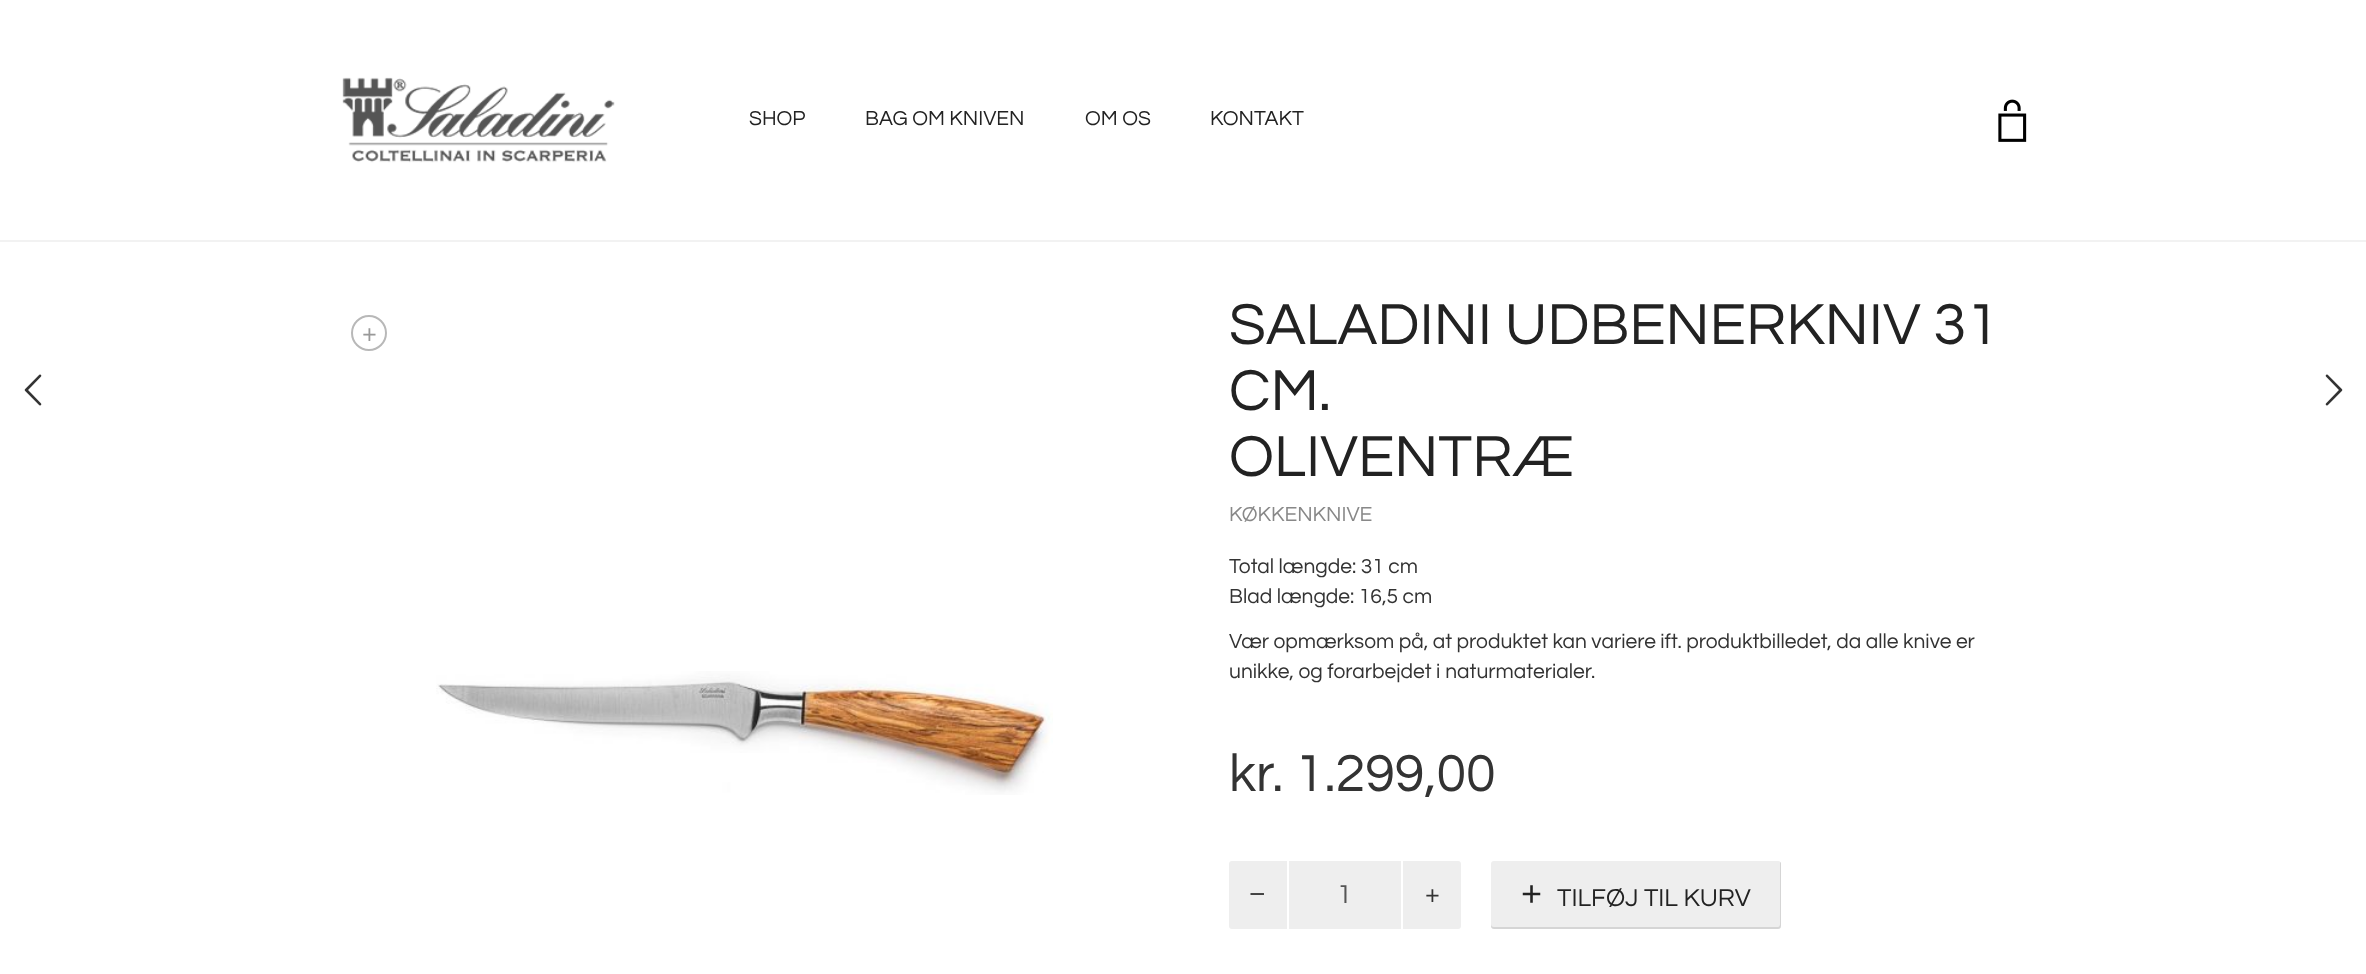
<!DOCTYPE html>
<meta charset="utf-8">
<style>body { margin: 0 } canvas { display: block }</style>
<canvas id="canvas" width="2366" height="974"></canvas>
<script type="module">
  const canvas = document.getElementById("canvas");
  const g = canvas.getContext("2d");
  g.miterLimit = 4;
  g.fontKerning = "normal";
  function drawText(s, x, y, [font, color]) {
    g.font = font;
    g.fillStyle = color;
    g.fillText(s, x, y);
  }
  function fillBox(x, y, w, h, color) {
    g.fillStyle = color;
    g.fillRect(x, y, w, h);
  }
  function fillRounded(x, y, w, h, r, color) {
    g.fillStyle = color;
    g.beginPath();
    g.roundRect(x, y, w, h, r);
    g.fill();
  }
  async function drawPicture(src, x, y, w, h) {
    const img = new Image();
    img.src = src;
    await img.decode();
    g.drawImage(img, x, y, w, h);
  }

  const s1 = ["21px Questrial", "#222222"];
  const s2 = ["27px Questrial", "#999999"];
  const s3 = ["60px Questrial", "#222222"];
  const s4 = ["21px Questrial", "#888888"];
  const s5 = ["21px Questrial", "#333333"];
  const s6 = ["54px Questrial", "#333333"];
  const s7 = ["27px Questrial", "#333333"];
  const s8 = ["27px Questrial", "#555555"];
  const s9 = ["36px Liberation Sans", "#222222"];
  const s10 = ["25.5px Questrial", "#222222"];

  fillBox(0, 0, 2366, 974, "#FFFFFF");
  fillBox(0, 240, 2366, 2, "#F2F2F2");
  await drawPicture("pic1.png", 342, 77, 273, 86);
  drawText("SHOP", 749, 125, s1);
  drawText("BAG OM KNIVEN", 865, 125, s1);
  drawText("OM OS", 1085, 125, s1);
  drawText("KONTAKT", 1210, 125, s1);
  await drawPicture("pic2.png", 1998, 99, 29, 43);
  g.beginPath();
  g.arc(369, 333, 17, 0, Math.PI * 2);
  g.strokeStyle = "#B8B8B8";
  g.lineWidth = 2;
  g.stroke();
  drawText("+", 362, 341, s2);
  await drawPicture("pic3.png", 436, 671, 617, 124);
  drawText("SALADINI UDBENERKNIV 31", 1229, 344, s3);
  drawText("CM.", 1229, 410, s3);
  drawText("OLIVENTRÆ", 1229, 476, s3);
  drawText("KØKKENKNIVE", 1229, 521, s4);
  drawText("Total længde: 31 cm", 1229, 573, s5);
  drawText("Blad længde: 16,5 cm", 1229, 603, s5);
  drawText("Vær opmærksom på, at produktet kan variere ift. produktbilledet, da alle knive er", 1229, 648, s5);
  drawText("unikke, og forarbejdet i naturmaterialer.", 1229, 678, s5);
  drawText("kr. 1.299,00", 1229, 791, s6);
  fillRounded(1229, 861, 232, 68, 3, "#EEEEEE");
  drawText("–", 1249, 902, s7);
  fillBox(1401, 861, 2, 68, "#FFFFFF");
  fillBox(1287, 861, 2, 68, "#FFFFFF");
  drawText("1", 1337, 903, s8);
  drawText("+", 1425, 902, s7);
  fillRounded(1491, 861, 290, 68, 3, "#EEEEEE");
  g.fillStyle = "rgba(0, 0, 0, 0.1)";
  g.beginPath();
  g.moveTo(1491, 924);
  g.lineTo(1491, 926);
  g.bezierCurveTo(1491, 928, 1492, 929, 1494, 929);
  g.lineTo(1778, 929);
  g.bezierCurveTo(1780, 929, 1781, 928, 1781, 926);
  g.lineTo(1781, 864);
  g.bezierCurveTo(1781, 863, 1781, 862, 1780, 862);
  g.lineTo(1780, 924);
  g.bezierCurveTo(1780, 926, 1779, 927, 1778, 927);
  g.lineTo(1494, 927);
  g.bezierCurveTo(1492, 927, 1491, 926, 1491, 924);
  g.closePath();
  g.fill();
  drawText("+", 1521, 906, s9);
  drawText("TILFØJ TIL KURV", 1557, 906, s10);
  await drawPicture("pic4.png", 24, 374, 18, 32);
  await drawPicture("pic5.png", 2325, 374, 18, 32);
</script>
